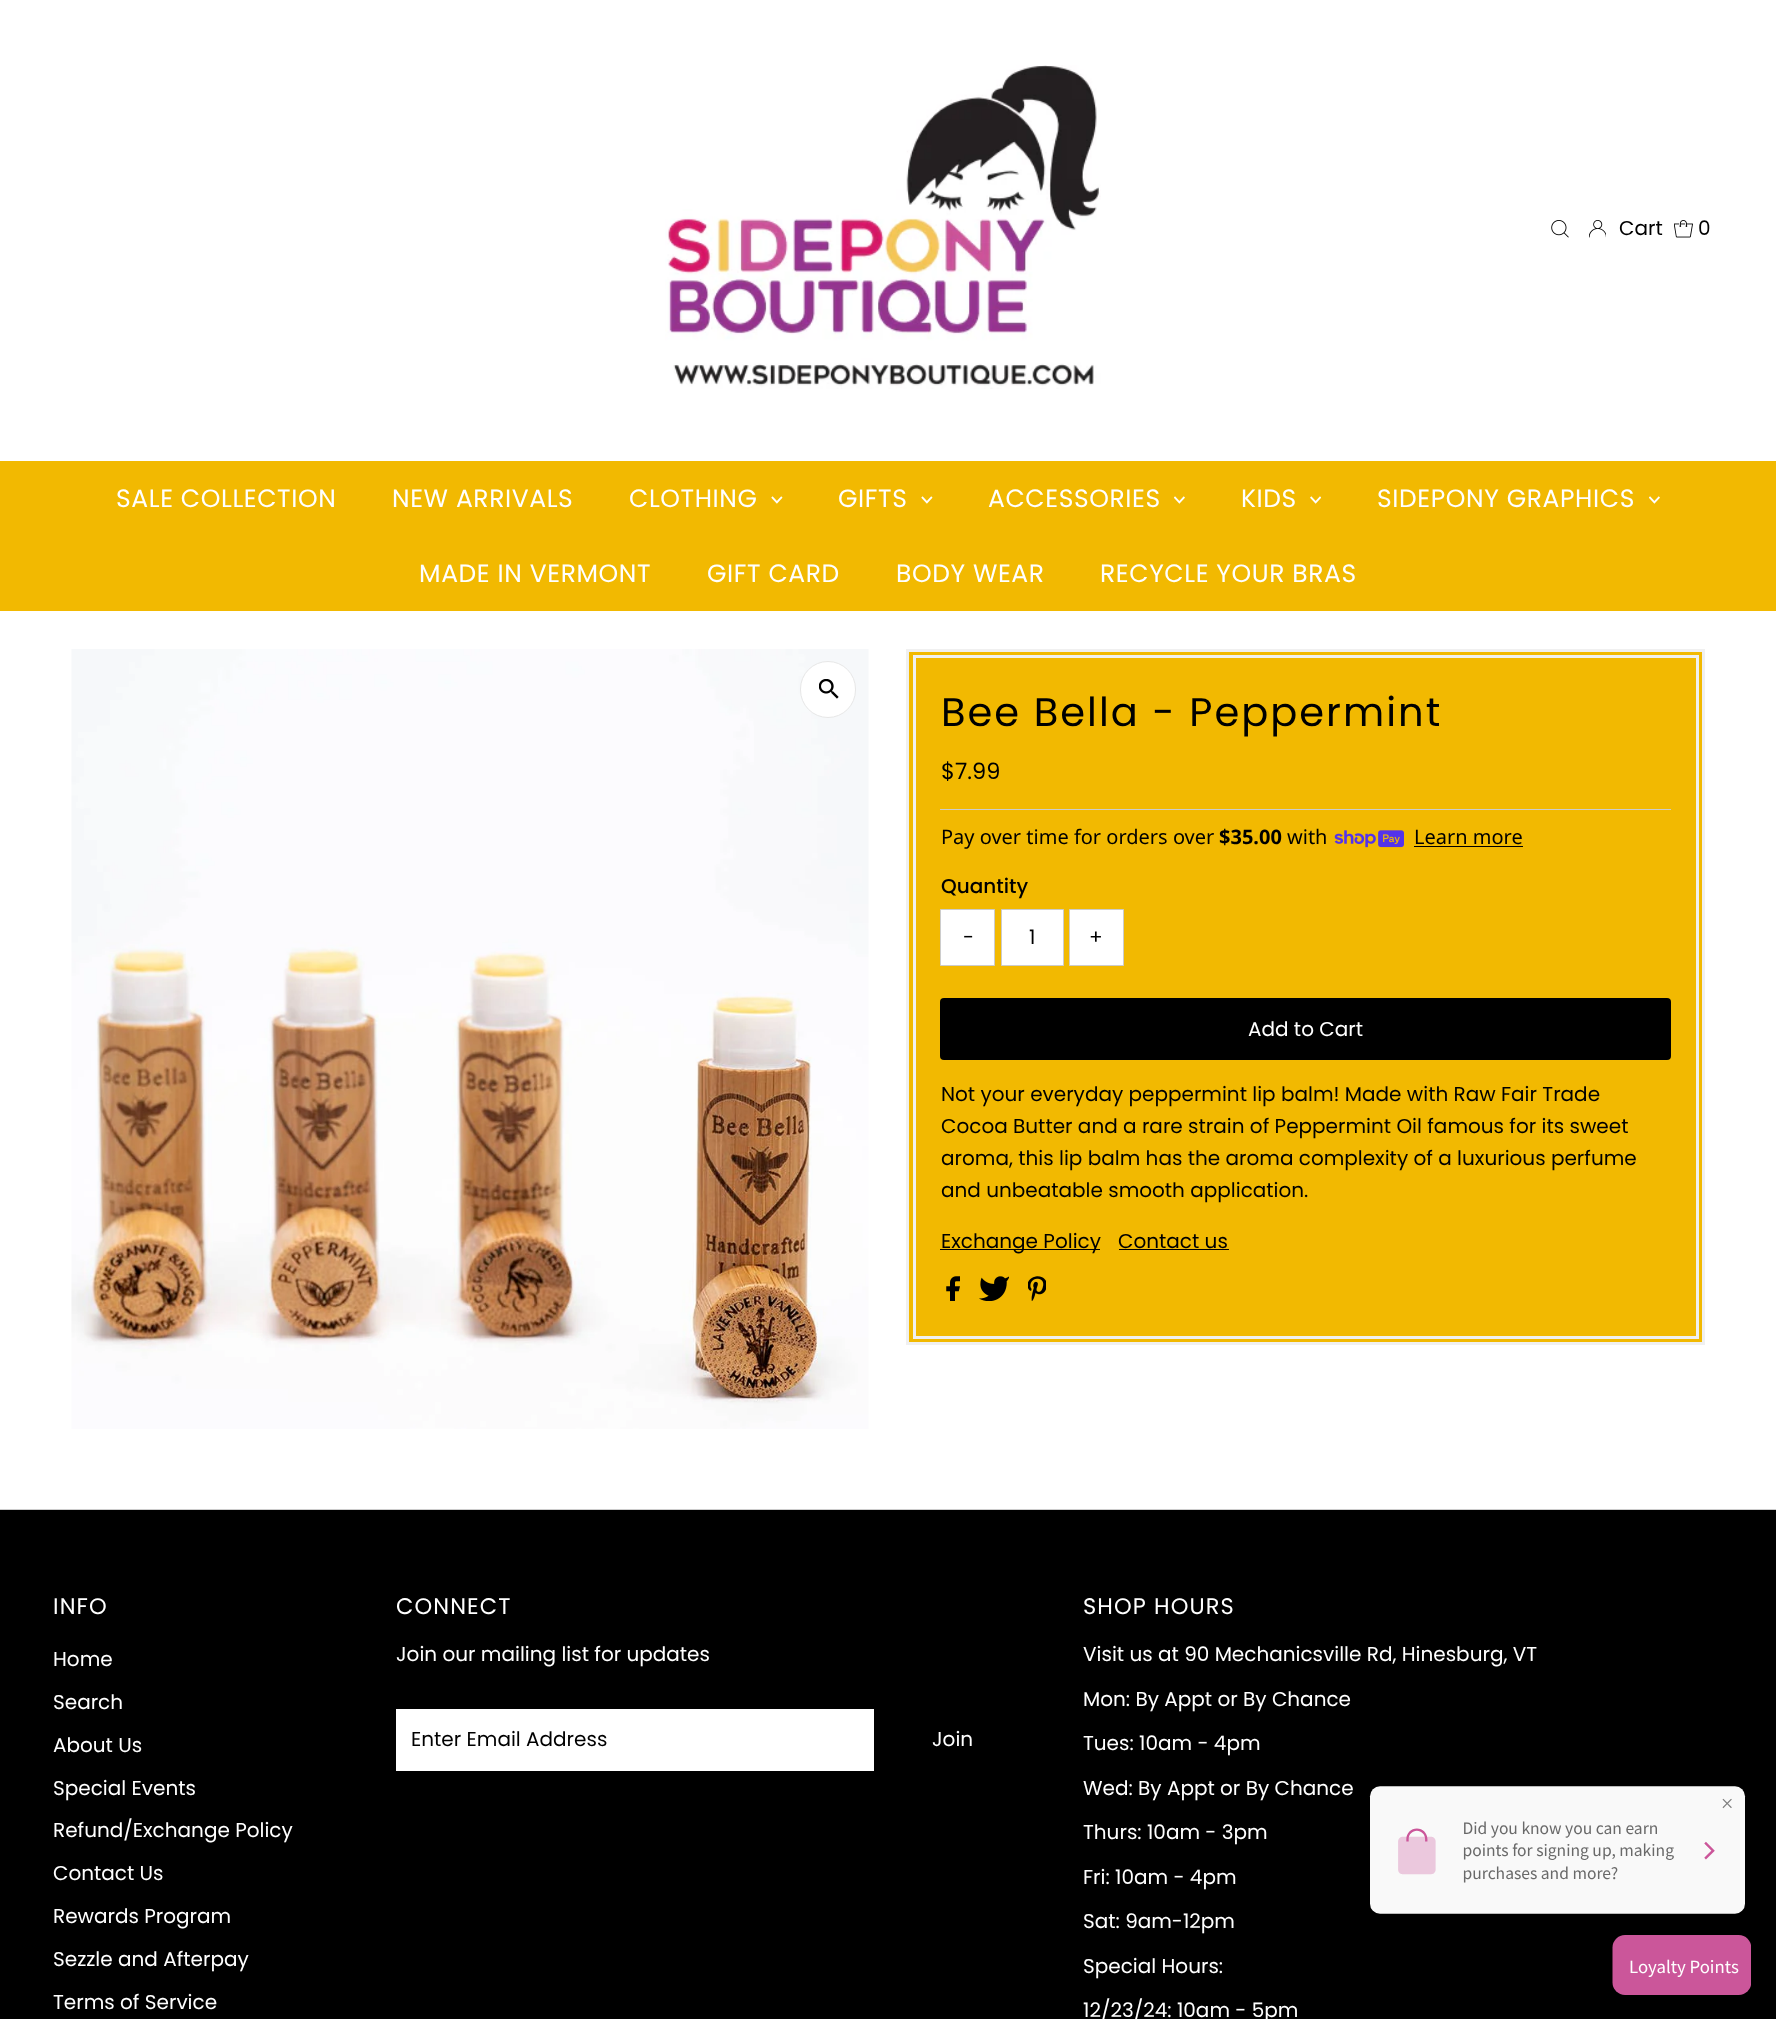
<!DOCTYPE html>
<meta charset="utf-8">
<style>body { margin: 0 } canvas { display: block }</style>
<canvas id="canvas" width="1776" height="2019"></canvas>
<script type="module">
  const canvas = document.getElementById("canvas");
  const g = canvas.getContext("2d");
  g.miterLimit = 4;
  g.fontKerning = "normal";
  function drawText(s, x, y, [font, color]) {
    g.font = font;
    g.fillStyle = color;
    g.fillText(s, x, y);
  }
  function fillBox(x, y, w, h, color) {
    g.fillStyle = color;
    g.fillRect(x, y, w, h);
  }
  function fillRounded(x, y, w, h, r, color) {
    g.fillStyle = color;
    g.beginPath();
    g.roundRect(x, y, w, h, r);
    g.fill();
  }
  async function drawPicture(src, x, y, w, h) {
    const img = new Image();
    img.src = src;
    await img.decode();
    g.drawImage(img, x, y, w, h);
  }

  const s1 = ["20px Poppins", "#000000"];
  const s2 = ["25px Poppins", "#FFFFFF"];
  const s3 = ["40px Poppins", "#000000"];
  const s4 = ["22.5px Poppins", "#000000"];
  const s5 = ["20px Noto Sans", "#000000"];
  const s6 = ["bold 20px Noto Sans", "#000000"];
  const s7 = ["500 20px Poppins", "#000000"];
  const s8 = ["20px Poppins", "#FFFFFF"];
  const s9 = ["22.5px Poppins", "#FFFFFF"];

  fillBox(0, 0, 1776, 2019, "#FFFFFF");
  await drawPicture("pic1.png", 665, 65, 436, 324);
  await drawPicture("pic2.png", 1551, 220, 18, 18);
  await drawPicture("pic3.png", 1589, 220, 17, 18);
  drawText("Cart", 1619, 235, s1);
  await drawPicture("pic4.png", 1674, 220, 19, 18);
  drawText("0", 1698, 235, s1);
  fillBox(0, 461, 1776, 150, "#F2B901");
  g.letterSpacing = "0.6px";
  drawText("SALE COLLECTION", 116, 507, s2);
  drawText("NEW ARRIVALS", 392, 507, s2);
  drawText("CLOTHING", 629, 507, s2);
  await drawPicture("pic5.png", 771, 496, 12, 8);
  drawText("GIFTS", 838, 507, s2);
  await drawPicture("pic5.png", 921, 496, 12, 8);
  drawText("ACCESSORIES", 988, 507, s2);
  await drawPicture("pic6.png", 1174, 496, 11, 8);
  drawText("KIDS", 1241, 507, s2);
  await drawPicture("pic7.png", 1310, 496, 11, 8);
  drawText("SIDEPONY GRAPHICS", 1377, 507, s2);
  await drawPicture("pic6.png", 1649, 496, 11, 8);
  drawText("MADE IN VERMONT", 419, 582, s2);
  drawText("GIFT CARD", 707, 582, s2);
  drawText("BODY WEAR", 896, 582, s2);
  drawText("RECYCLE YOUR BRAS", 1100, 582, s2);
  await drawPicture("pic8.png", 71, 649, 798, 780);
  g.beginPath();
  g.roundRect(800.5, 661.5, 55, 56, 27.5);
  g.fill();
  g.strokeStyle = "#E7E7E7";
  g.stroke();
  await drawPicture("pic9.png", 819, 679, 20, 20);
  g.fillStyle = "#F2B901";
  g.beginPath();
  g.rect(907.5, 650.5, 796, 693);
  g.fill();
  g.strokeStyle = "#F0F0F0";
  g.lineWidth = 3;
  g.stroke();
  g.strokeRect(914.5, 656.5, 783, 681);
  g.letterSpacing = "2px";
  drawText("Bee Bella - Peppermint", 941, 726, s3);
  fillBox(940, 809, 731, 1, "#CCCCCC");
  g.letterSpacing = "0px";
  drawText("$7.99", 941, 779, s4);
  drawText("Pay over time for orders over", 941, 844, s5);
  drawText("$35.00", 1219, 844, s6);
  drawText("with", 1287, 844, s5);
  await drawPicture("pic10.png", 1334, 830, 70, 18);
  drawText("Learn more", 1414, 844, s5);
  fillBox(1414, 846, 109, 1, "#000000");
  drawText("Quantity", 941, 893, s7);
  g.fillStyle = "#FFFFFF";
  g.beginPath();
  g.rect(940.5, 909.5, 54, 56);
  g.fill();
  g.strokeStyle = "#CCCCCC";
  g.lineWidth = 1;
  g.stroke();
  drawText("-", 963, 944, s1);
  g.fillStyle = "#FFFFFF";
  g.beginPath();
  g.rect(1001.5, 909.5, 62, 56);
  g.fill();
  g.stroke();
  drawText("1", 1029, 944, s1);
  g.fillStyle = "#FFFFFF";
  g.beginPath();
  g.rect(1069.5, 909.5, 54, 56);
  g.fill();
  g.stroke();
  drawText("+", 1089, 944, s1);
  fillRounded(940, 998, 731, 62, 4, "#000000");
  drawText("Add to Cart", 1248, 1036, s8);
  drawText("Not your everyday peppermint lip balm! Made with Raw Fair Trade", 941, 1101, s1);
  drawText("Cocoa Butter and a rare strain of Peppermint Oil famous for its sweet", 941, 1133, s1);
  drawText("aroma, this lip balm has the aroma complexity of a luxurious perfume", 941, 1165, s1);
  drawText("and unbeatable smooth application.", 941, 1197, s1);
  fillBox(940, 1249, 160, 1, "#000000");
  drawText("Exchange Policy", 941, 1248, s1);
  drawText("Contact us", 1118, 1248, s1);
  fillBox(1119, 1249, 110, 1, "#000000");
  await drawPicture("pic11.png", 946, 1276, 14, 25);
  await drawPicture("pic12.png", 979, 1276, 30, 25);
  await drawPicture("pic13.png", 1028, 1276, 18, 25);
  fillBox(0, 1510, 1776, 509, "#000000");
  fillBox(0, 1509, 1776, 1, "#CCCCCC");
  g.letterSpacing = "1.1px";
  drawText("INFO", 53, 1614, s9);
  g.letterSpacing = "0px";
  drawText("Home", 53, 1666, s8);
  drawText("Search", 53, 1709, s8);
  drawText("About Us", 53, 1752, s8);
  drawText("Special Events", 53, 1795, s8);
  drawText("Refund/Exchange Policy", 53, 1837, s8);
  drawText("Contact Us", 53, 1880, s8);
  drawText("Rewards Program", 53, 1923, s8);
  drawText("Sezzle and Afterpay", 53, 1966, s8);
  drawText("Terms of Service", 53, 2009, s8);
  g.letterSpacing = "1.1px";
  drawText("CONNECT", 396, 1614, s9);
  g.letterSpacing = "0px";
  drawText("Join our mailing list for updates", 396, 1661, s8);
  fillBox(396, 1709, 478, 62, "#FFFFFF");
  drawText("Enter Email Address", 411, 1746, s1);
  drawText("Join", 932, 1746, s8);
  g.letterSpacing = "1.1px";
  drawText("SHOP HOURS", 1083, 1614, s9);
  g.letterSpacing = "0px";
  drawText("Visit us at 90 Mechanicsville Rd, Hinesburg, VT", 1083, 1661, s8);
  drawText("Mon: By Appt or By Chance", 1083, 1706, s8);
  drawText("Tues: 10am - 4pm", 1083, 1750, s8);
  drawText("Wed: By Appt or By Chance", 1083, 1795, s8);
  drawText("Thurs: 10am - 3pm", 1083, 1839, s8);
  drawText("Fri: 10am - 4pm", 1083, 1884, s8);
  drawText("Sat: 9am-12pm", 1083, 1928, s8);
  drawText("Special Hours:", 1083, 1973, s8);
  drawText("12/23/24: 10am - 5pm", 1083, 2017, s8);
  await drawPicture("pic14.png", 1369, 1786, 377, 128);
  await drawPicture("pic15.png", 1612, 1935, 139, 60);
</script>
